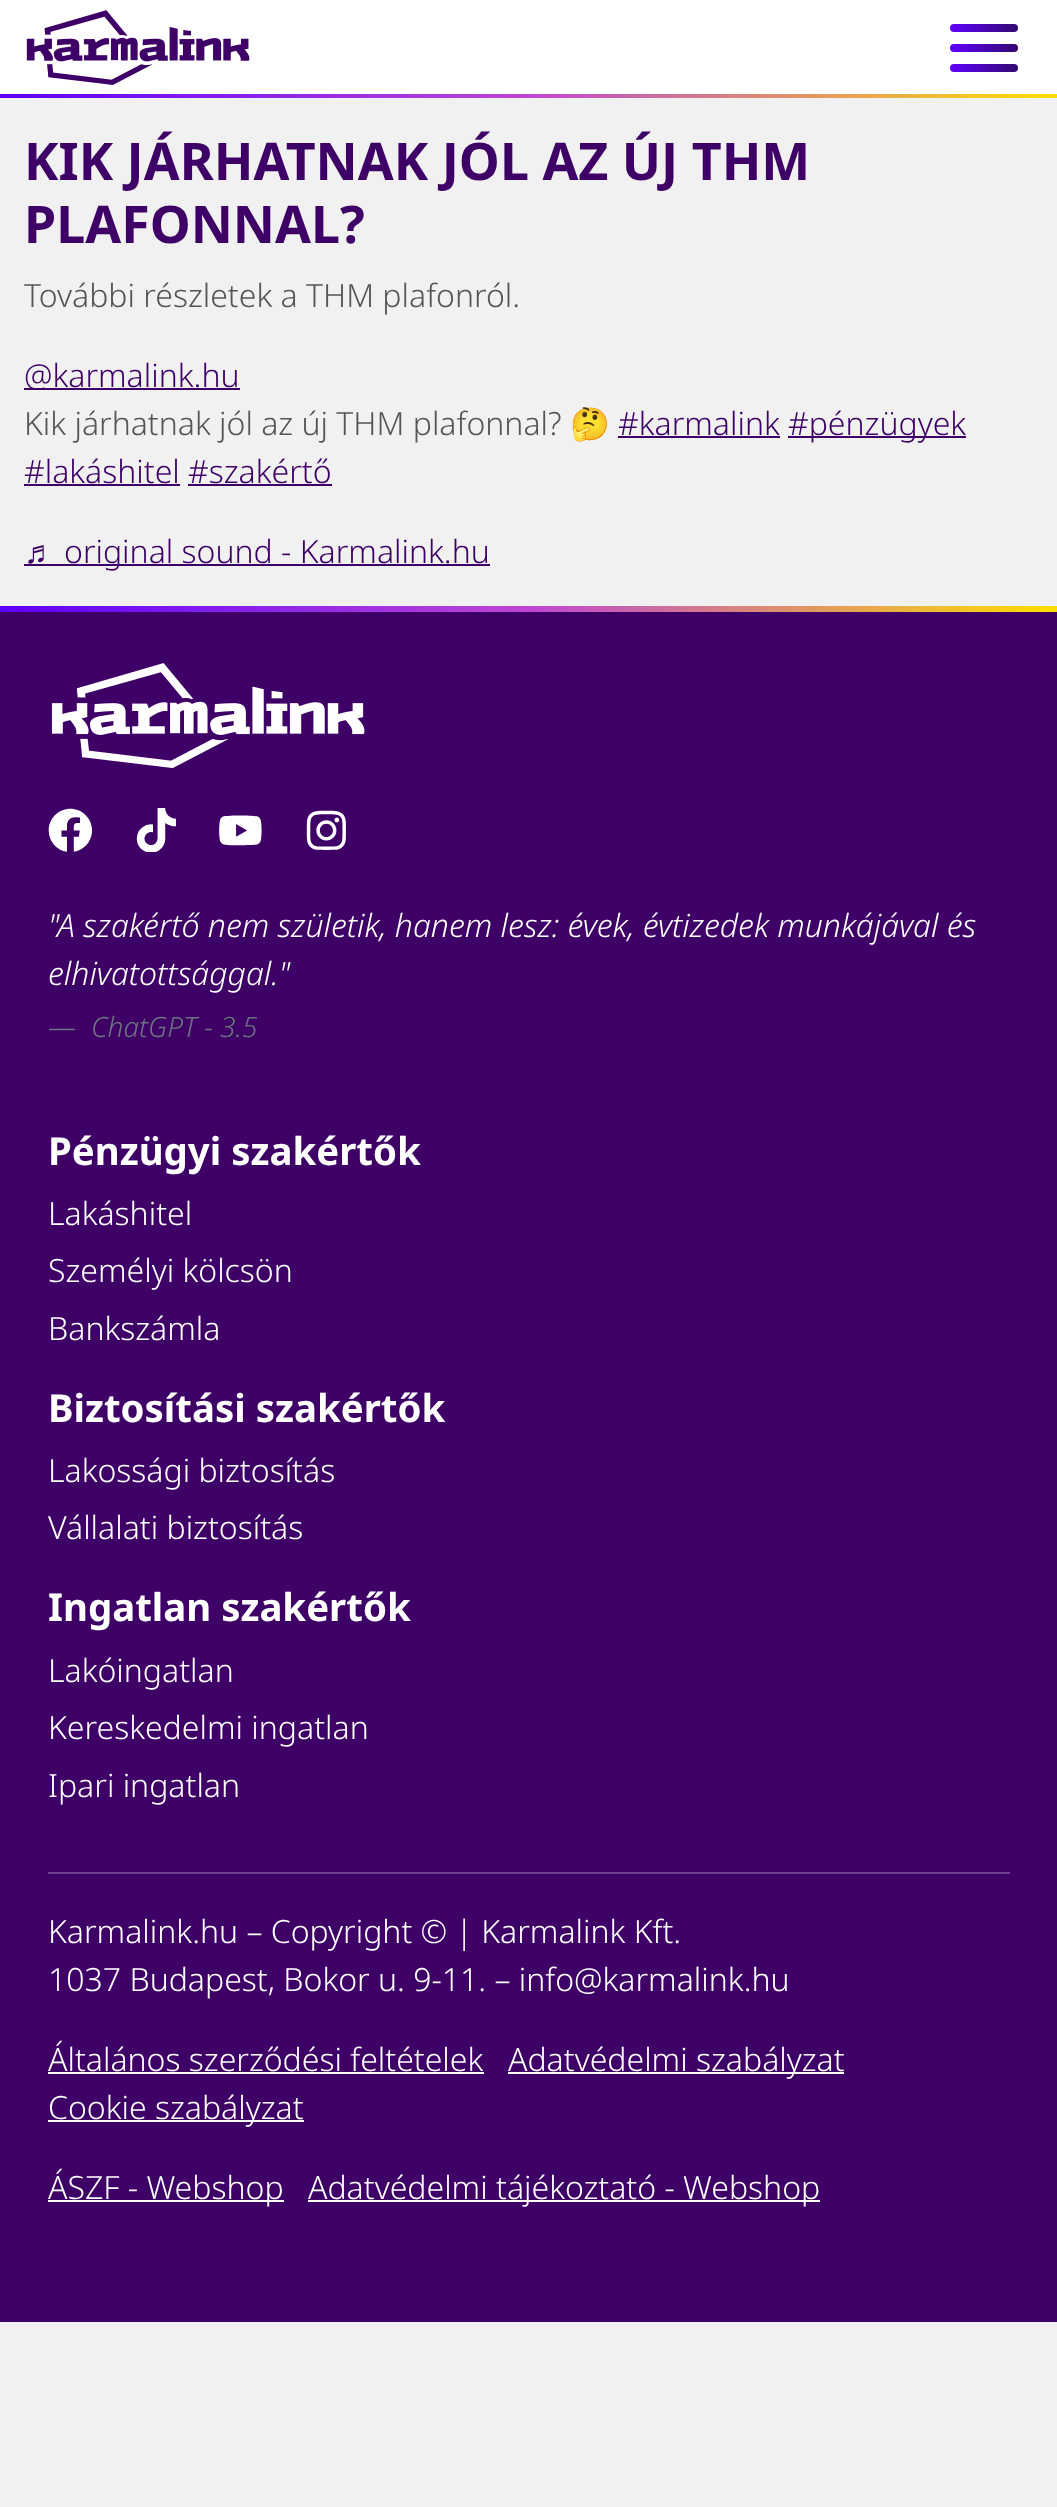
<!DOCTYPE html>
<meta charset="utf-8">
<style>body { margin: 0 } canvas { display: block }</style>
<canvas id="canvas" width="1057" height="2507"></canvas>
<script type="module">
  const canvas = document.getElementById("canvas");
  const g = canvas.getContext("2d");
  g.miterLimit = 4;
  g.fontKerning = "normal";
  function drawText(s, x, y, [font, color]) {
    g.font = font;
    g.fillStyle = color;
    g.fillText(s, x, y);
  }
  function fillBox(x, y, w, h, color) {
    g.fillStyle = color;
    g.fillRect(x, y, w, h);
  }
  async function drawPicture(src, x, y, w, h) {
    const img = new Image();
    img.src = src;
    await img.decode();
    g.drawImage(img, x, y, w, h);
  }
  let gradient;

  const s1 = ["bold 51.9px Noto Sans", "#3E0067"];
  const s2 = ["300 32px Noto Sans", "#555555"];
  const s3 = ["300 32px Noto Sans", "#3E0067"];
  const s4 = ["32px Noto Color Emoji", "#555555"];
  const s5 = ["32px Liberation Sans", "#3E0067"];
  const s6 = ["italic 300 32px Noto Sans", "#FFFFFF"];
  const s7 = ["300 28px Noto Sans", "#6C757D"];
  const s8 = ["italic 300 28px Noto Sans", "#6C757D"];
  const s9 = ["bold 38.4px Noto Sans", "#FFFFFF"];
  const s10 = ["300 32px Noto Sans", "#FFFFFF"];

  fillBox(0, 0, 1057, 2507, "#F1F1F1");
  fillBox(0, 0, 1057, 94, "#FFFFFF");
  await drawPicture("pic1.png", 0, 94, 1057, 4);
  await drawPicture("pic2.png", 26, 10, 224, 75);
  gradient = g.createLinearGradient(950, 28, 1018, 28);
  gradient.addColorStop(0, "#6002FD");
  gradient.addColorStop(1, "#33096F");
  g.fillStyle = gradient;
  g.beginPath();
  g.roundRect(950, 24, 68, 8, 4);
  g.fill();
  gradient = g.createLinearGradient(950, 48, 1018, 48);
  gradient.addColorStop(0, "#6002FD");
  gradient.addColorStop(1, "#33096F");
  g.fillStyle = gradient;
  g.beginPath();
  g.roundRect(950, 44, 68, 8, 4);
  g.fill();
  gradient = g.createLinearGradient(950, 68, 1018, 68);
  gradient.addColorStop(0, "#6002FD");
  gradient.addColorStop(1, "#33096F");
  g.fillStyle = gradient;
  g.beginPath();
  g.roundRect(950, 64, 68, 8, 4);
  g.fill();
  drawText("KIK JÁRHATNAK JÓL AZ ÚJ THM", 24, 180, s1);
  drawText("PLAFONNAL?", 24, 243, s1);
  drawText("További részletek a THM plafonról.", 24, 307, s2);
  fillBox(24, 388, 216, 2, "#3E0067");
  drawText("@karmalink.hu", 24, 387, s3);
  drawText("Kik járhatnak jól az új THM plafonnal?", 24, 435, s2);
  drawText("🤔", 570, 435, s4);
  drawText("#karmalink", 618, 435, s3);
  fillBox(618, 436, 162, 2, "#3E0067");
  fillBox(788, 436, 178, 2, "#3E0067");
  drawText("#pénzügyek", 788, 435, s3);
  drawText("#lakáshitel #szakértő", 24, 483, s3);
  fillBox(24, 484, 156, 2, "#3E0067");
  fillBox(188, 484, 144, 2, "#3E0067");
  drawText("♬", 24, 563, s5);
  fillBox(24, 564, 466, 2, "#3E0067");
  drawText("original sound - Karmalink.hu", 64, 563, s3);
  fillBox(0, 612, 1057, 1710, "#3E0067");
  await drawPicture("pic3.png", 0, 606, 1057, 6);
  await drawPicture("pic4.png", 51, 663, 314, 106);
  await drawPicture("pic5.png", 48, 808, 44, 44);
  await drawPicture("pic6.png", 136, 808, 40, 44);
  await drawPicture("pic7.png", 219, 815, 43, 31);
  await drawPicture("pic8.png", 306, 810, 40, 40);
  drawText("\"A szakértő nem születik, hanem lesz: évek, évtizedek munkájával és", 48, 937, s6);
  drawText("elhivatottsággal.\"", 48, 985, s6);
  drawText("—", 48, 1037, s7);
  drawText("ChatGPT - 3.5", 91, 1037, s8);
  drawText("Pénzügyi szakértők", 48, 1165, s9);
  drawText("Lakáshitel", 48, 1225, s10);
  drawText("Személyi kölcsön", 48, 1282, s10);
  drawText("Bankszámla", 48, 1340, s10);
  drawText("Biztosítási szakértők", 48, 1422, s9);
  drawText("Lakossági biztosítás", 48, 1482, s10);
  drawText("Vállalati biztosítás", 48, 1539, s10);
  drawText("Ingatlan szakértők", 48, 1621, s9);
  drawText("Lakóingatlan", 48, 1682, s10);
  drawText("Kereskedelmi ingatlan", 48, 1739, s10);
  drawText("Ipari ingatlan", 48, 1797, s10);
  fillBox(48, 1872, 962, 2, "#6E408D");
  drawText("Karmalink.hu – Copyright © | Karmalink Kft.", 48, 1943, s10);
  drawText("1037 Budapest, Bokor u. 9-11. – info@karmalink.hu", 48, 1991, s10);
  drawText("Általános szerződési feltételek", 48, 2071, s10);
  fillBox(48, 2072, 436, 2, "#FFFFFF");
  fillBox(508, 2072, 336, 2, "#FFFFFF");
  drawText("Adatvédelmi szabályzat", 508, 2071, s10);
  fillBox(48, 2120, 256, 2, "#FFFFFF");
  drawText("Cookie szabályzat", 48, 2119, s10);
  fillBox(48, 2200, 236, 2, "#FFFFFF");
  drawText("ÁSZF - Webshop", 48, 2199, s10);
  fillBox(308, 2200, 512, 2, "#FFFFFF");
  drawText("Adatvédelmi tájékoztató - Webshop", 308, 2199, s10);
</script>
